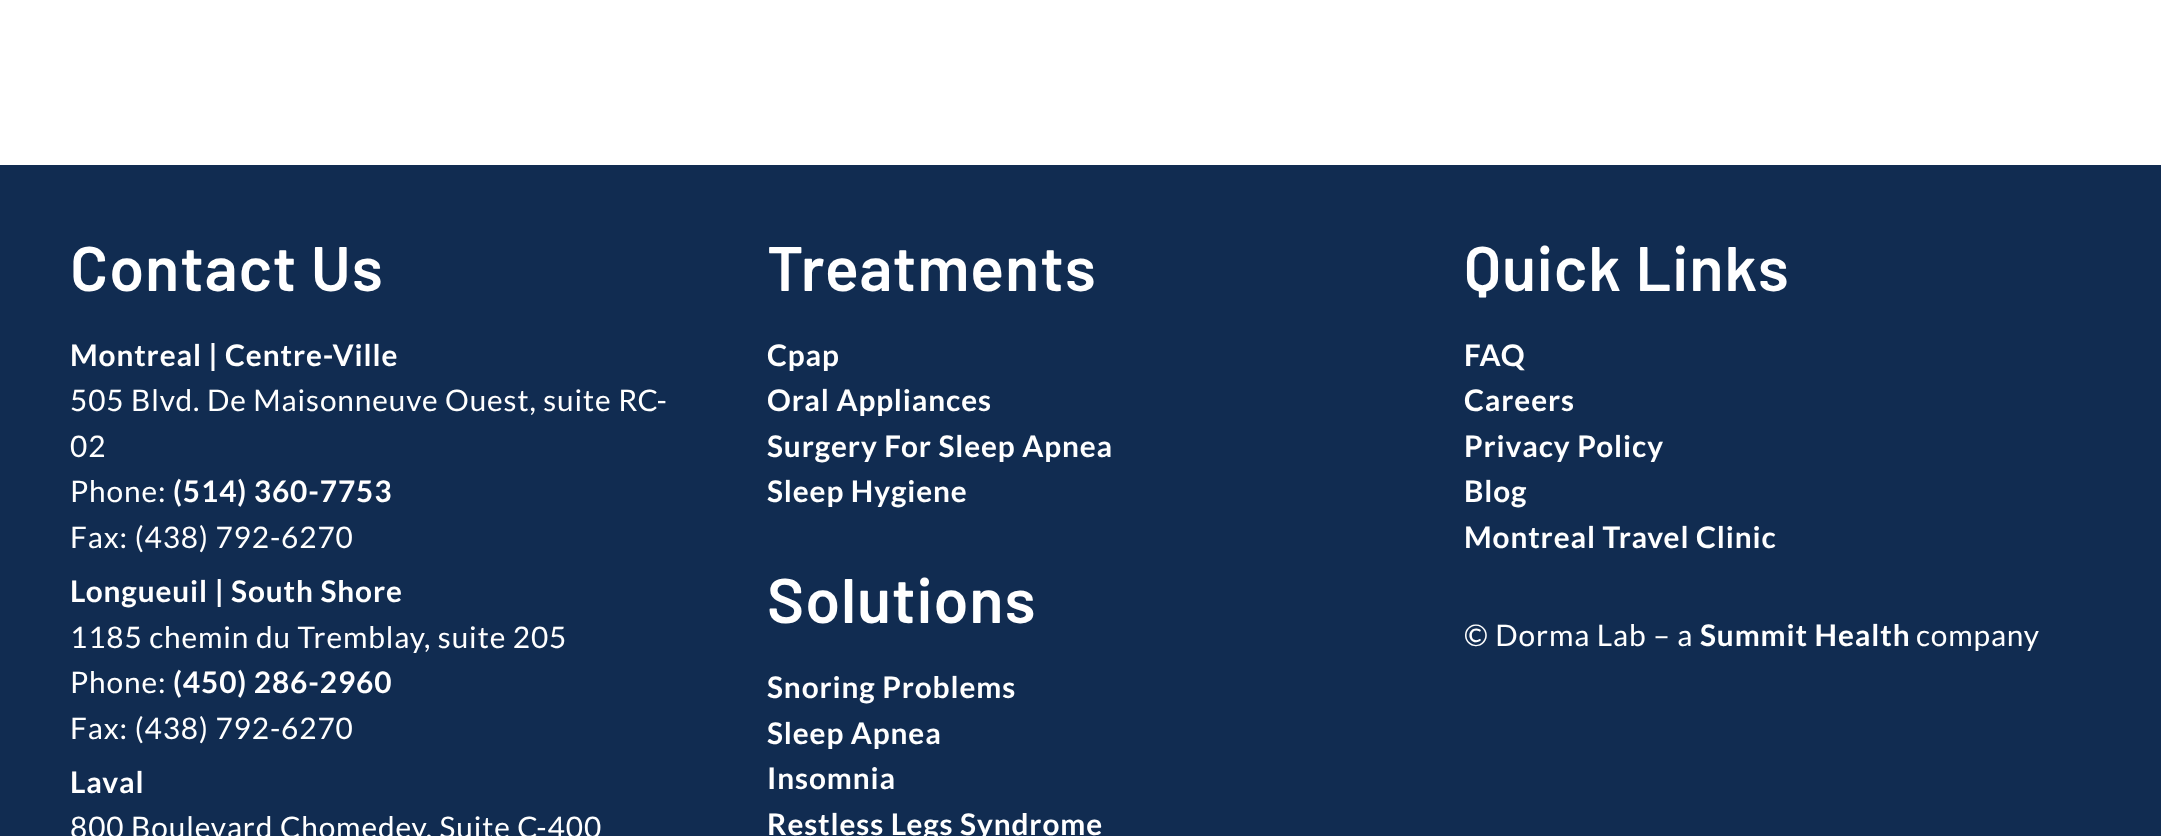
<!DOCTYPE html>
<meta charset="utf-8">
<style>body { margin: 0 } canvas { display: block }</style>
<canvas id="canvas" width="2161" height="836"></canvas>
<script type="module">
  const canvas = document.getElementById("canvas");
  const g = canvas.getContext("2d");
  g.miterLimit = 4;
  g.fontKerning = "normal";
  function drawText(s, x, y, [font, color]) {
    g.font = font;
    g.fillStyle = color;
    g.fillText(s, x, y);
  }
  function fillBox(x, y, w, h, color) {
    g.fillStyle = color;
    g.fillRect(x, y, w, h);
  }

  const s1 = ["600 63px Barlow", "#FFFFFF"];
  const s2 = ["bold 29.75px Lato", "#FFFFFF"];
  const s3 = ["29.75px Lato", "#FFFFFF"];

  fillBox(0, 0, 2161, 836, "#FFFFFF");
  fillBox(0, 165, 2161, 671, "#112C51");
  g.letterSpacing = "0.9px";
  drawText("Contact Us", 70, 291, s1);
  drawText("Montreal | Centre-Ville", 70, 366, s2);
  drawText("505 Blvd. De Maisonneuve Ouest, suite RC-", 70, 411, s3);
  drawText("02", 70, 457, s3);
  drawText("Phone:", 70, 502, s3);
  drawText("(514) 360-7753", 173, 502, s2);
  drawText("Fax: (438) 792-6270", 70, 548, s3);
  drawText("Longueuil | South Shore", 70, 602, s2);
  drawText("1185 chemin du Tremblay, suite 205", 70, 648, s3);
  drawText("Phone:", 70, 693, s3);
  drawText("(450) 286-2960", 173, 693, s2);
  drawText("Fax: (438) 792-6270", 70, 739, s3);
  drawText("Laval", 70, 793, s2);
  drawText("800 Boulevard Chomedey, Suite C-400", 70, 838, s3);
  drawText("Treatments", 767, 291, s1);
  drawText("Cpap", 767, 366, s2);
  drawText("Oral Appliances", 767, 411, s2);
  drawText("Surgery For Sleep Apnea", 767, 457, s2);
  drawText("Sleep Hygiene", 767, 502, s2);
  drawText("Solutions", 767, 623, s1);
  drawText("Snoring Problems", 767, 698, s2);
  drawText("Sleep Apnea", 767, 744, s2);
  drawText("Insomnia", 767, 789, s2);
  drawText("Restless Legs Syndrome", 767, 835, s2);
  drawText("Quick Links", 1464, 291, s1);
  drawText("FAQ", 1464, 366, s2);
  drawText("Careers", 1464, 411, s2);
  drawText("Privacy Policy", 1464, 457, s2);
  drawText("Blog", 1464, 502, s2);
  drawText("Montreal Travel Clinic", 1464, 548, s2);
  drawText("© Dorma Lab – a", 1464, 646, s3);
  drawText("Summit Health", 1700, 646, s2);
  drawText("company", 1916, 646, s3);
</script>
